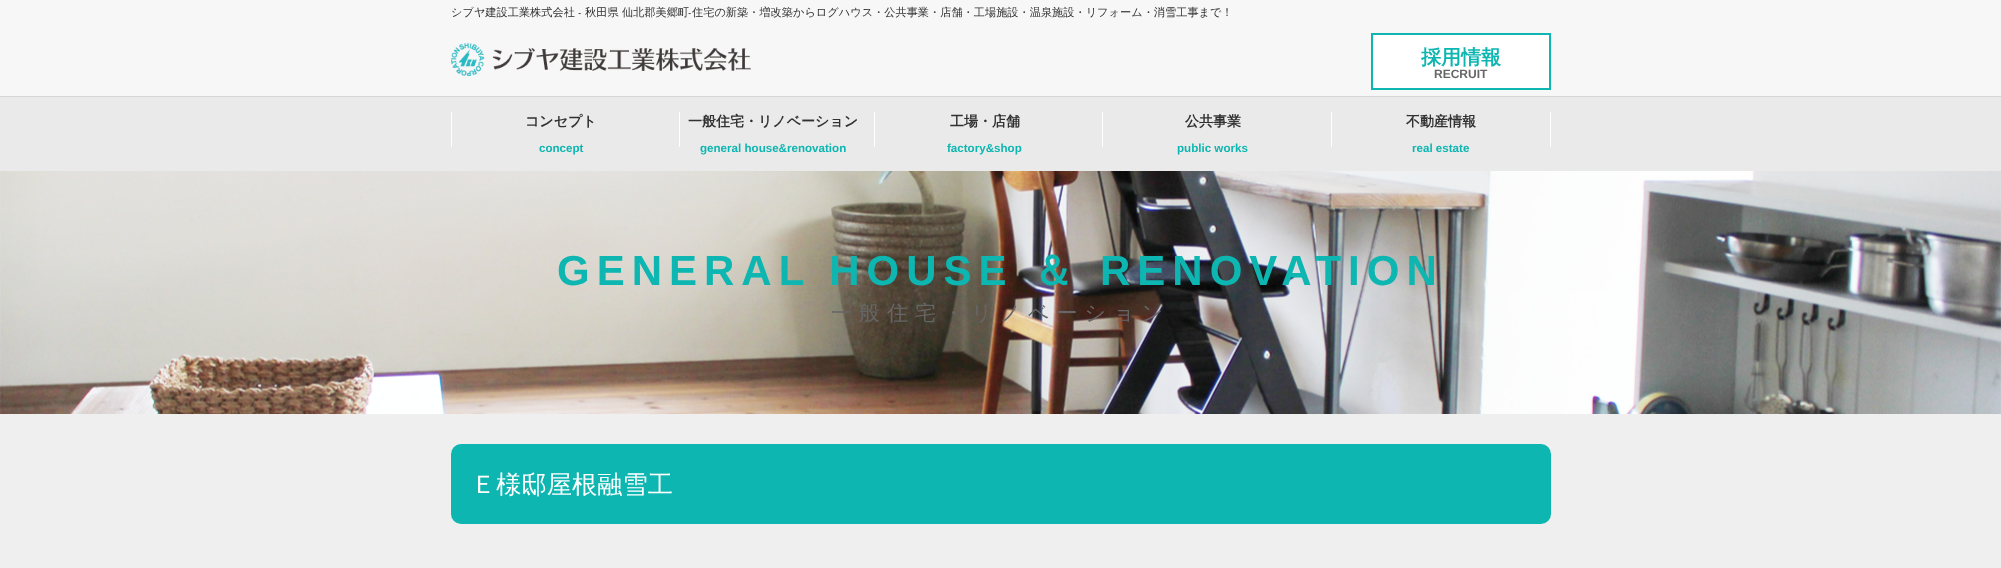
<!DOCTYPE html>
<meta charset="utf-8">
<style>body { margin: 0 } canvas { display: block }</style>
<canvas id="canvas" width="2001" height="568"></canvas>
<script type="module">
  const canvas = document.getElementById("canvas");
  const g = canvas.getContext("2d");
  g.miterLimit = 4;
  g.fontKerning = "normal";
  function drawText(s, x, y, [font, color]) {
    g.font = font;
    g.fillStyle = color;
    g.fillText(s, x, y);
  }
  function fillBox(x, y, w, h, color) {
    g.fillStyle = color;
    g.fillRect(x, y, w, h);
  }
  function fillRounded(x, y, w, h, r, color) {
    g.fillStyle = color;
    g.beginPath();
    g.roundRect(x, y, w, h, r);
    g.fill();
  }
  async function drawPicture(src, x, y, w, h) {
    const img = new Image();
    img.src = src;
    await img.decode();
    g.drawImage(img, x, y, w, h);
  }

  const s1 = ["500 11.2px WenQuanYi Zen Hei", "#313131"];
  const s2 = ["11.2px Josefin Sans", "#313131"];
  const s3 = ["bold 20px WenQuanYi Zen Hei", "#0DB6B1"];
  const s4 = ["bold 12px Liberation Sans", "#666666"];
  const s5 = ["bold 14px WenQuanYi Zen Hei", "#313131"];
  const s6 = ["bold 11.6px Liberation Sans", "#0DB6B1"];
  const s7 = ["bold 42px Liberation Sans", "#0DB6B1"];
  const s8 = ["bold 42px WenQuanYi Zen Hei", "#0DB6B1"];
  const s9 = ["500 21px WenQuanYi Zen Hei", "#666666"];
  const s10 = ["500 25.25px WenQuanYi Zen Hei", "#FFFFFF"];

  fillBox(0, 0, 2001, 568, "#EFEFEF");
  fillBox(0, 0, 2001, 96, "#F7F7F7");
  drawText("シブヤ建設工業株式会社", 451, 16, s1);
  drawText("-", 578, 16, s2);
  drawText("秋田県 仙北郡美郷町", 585, 16, s1);
  drawText("-", 688, 16, s2);
  drawText("住宅の新築・増改築からログハウス・公共事業・店舗・工場施設・温泉施設・リフォーム・消雪工事まで！", 692, 16, s1);
  await drawPicture("pic1.png", 451, 43, 300, 33);
  g.fillStyle = "#FFFFFF";
  g.beginPath();
  g.rect(1372, 34, 178, 55);
  g.fill();
  g.strokeStyle = "#0DB6B1";
  g.lineWidth = 2;
  g.stroke();
  drawText("採用情報", 1421, 64, s3);
  drawText("RECRUIT", 1434, 78, s4);
  fillBox(0, 97, 2001, 74, "#EAEAEA");
  fillBox(0, 96, 2001, 1, "#D7D5D5");
  fillBox(451, 112, 1, 35, "#FFFFFF");
  drawText("コンセプト", 525, 126, s5);
  drawText("concept", 539, 152, s6);
  fillBox(679, 112, 1, 35, "#FFFFFF");
  drawText("一般住宅・リノベーション", 688, 126, s5);
  drawText("general house&renovation", 700, 152, s6);
  fillBox(874, 112, 1, 35, "#FFFFFF");
  drawText("工場・店舗", 950, 126, s5);
  drawText("factory&shop", 947, 152, s6);
  fillBox(1102, 112, 1, 35, "#FFFFFF");
  drawText("公共事業", 1185, 126, s5);
  drawText("public works", 1177, 152, s6);
  fillBox(1550, 112, 1, 35, "#FFFFFF");
  fillBox(1331, 112, 1, 35, "#FFFFFF");
  drawText("不動産情報", 1406, 126, s5);
  drawText("real estate", 1412, 152, s6);
  await drawPicture("pic2.png", 0, 171, 2001, 243);
  g.letterSpacing = "7px";
  drawText("GENERAL HOUSE", 557, 285, s7);
  drawText("＆", 1032, 285, s8);
  drawText("RENOVATION", 1100, 285, s7);
  drawText("一般住宅・リノベーション", 831, 320, s9);
  fillRounded(451, 444, 1100, 80, 10, "#0DB6B1");
  g.letterSpacing = "0px";
  drawText("Ｅ様邸屋根融雪工", 471, 493, s10);
</script>
